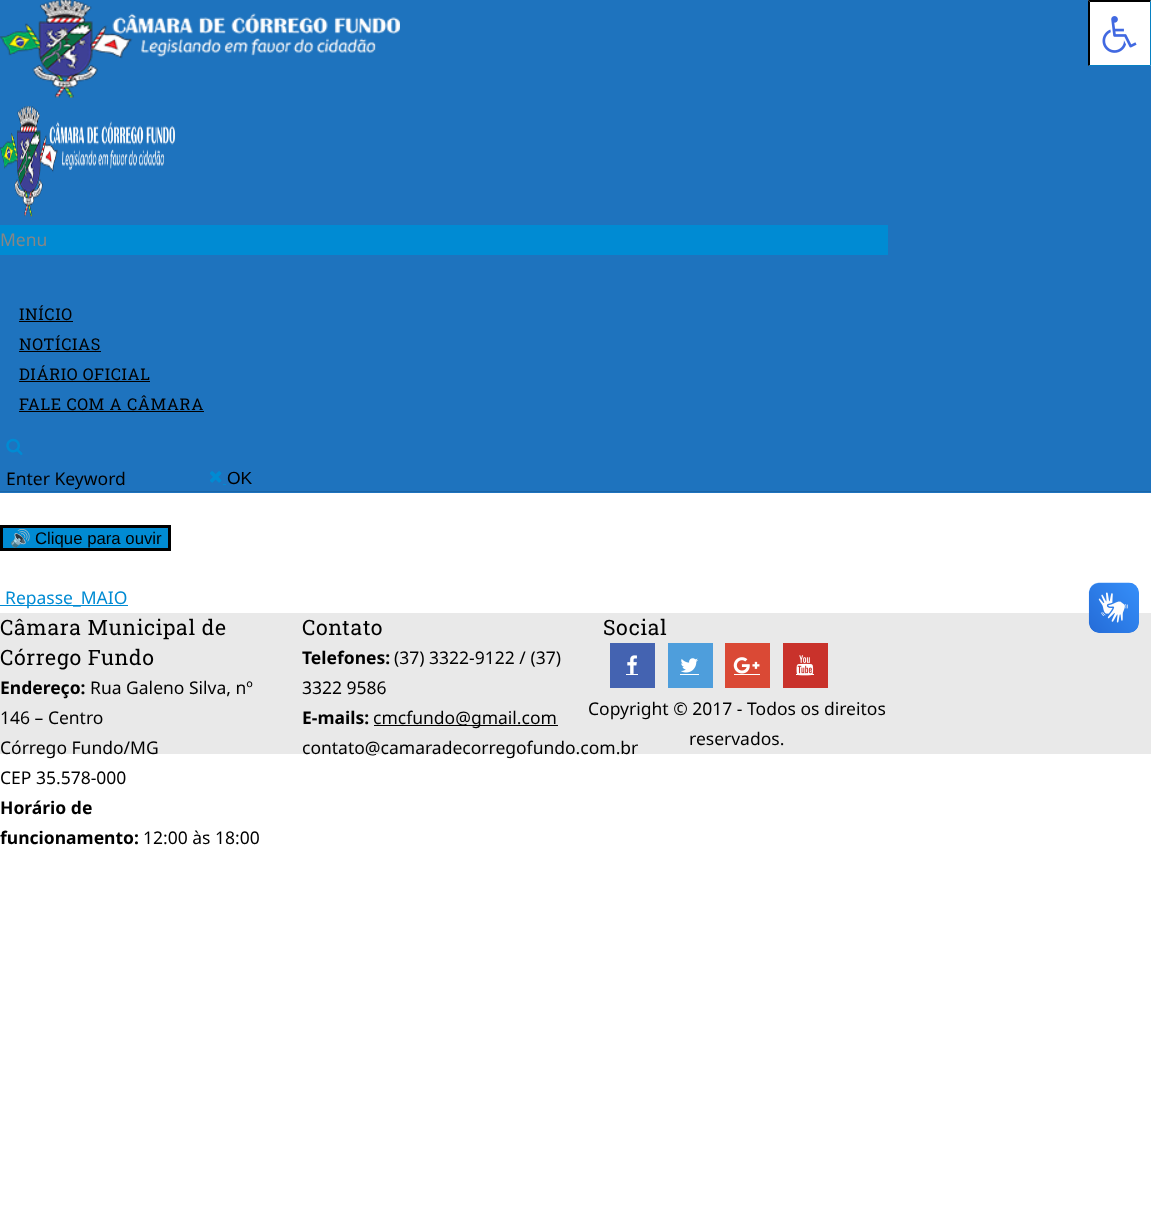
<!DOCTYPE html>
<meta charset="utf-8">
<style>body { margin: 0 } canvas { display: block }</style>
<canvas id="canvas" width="1151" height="1213"></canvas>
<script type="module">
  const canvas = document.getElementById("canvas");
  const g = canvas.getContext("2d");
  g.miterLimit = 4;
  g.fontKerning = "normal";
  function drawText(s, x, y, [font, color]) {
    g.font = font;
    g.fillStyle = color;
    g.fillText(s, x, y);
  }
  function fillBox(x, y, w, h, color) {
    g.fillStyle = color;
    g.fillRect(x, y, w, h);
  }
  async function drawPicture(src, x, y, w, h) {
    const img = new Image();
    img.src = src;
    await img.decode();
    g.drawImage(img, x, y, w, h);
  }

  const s1 = ["17.5px Noto Sans", "#868686"];
  const s2 = ["16.25px Roboto Slab", "#000000"];
  const s3 = ["17.5px Noto Sans", "#000000"];
  const s4 = ["17.5px Liberation Sans", "#000000"];
  const s5 = ["16.75px Noto Color Emoji", "#000000"];
  const s6 = ["16.75px Liberation Sans", "#000000"];
  const s7 = ["17.5px Noto Sans", "#008BD3"];
  const s8 = ["21.25px Roboto Slab", "#000000"];
  const s9 = ["bold 17.5px Noto Sans", "#000000"];

  fillBox(0, 0, 1151, 1213, "#FFFFFF");
  fillBox(0, 0, 1151, 493, "#1E73BE");
  fillBox(1088, 0, 63, 66, "#FFFFFF");
  g.fillStyle = "#000000";
  g.beginPath();
  g.moveTo(1088, 0);
  g.lineTo(1151, 0);
  g.lineTo(1150, 2);
  g.lineTo(1090, 2);
  g.closePath();
  g.fill();
  g.fillStyle = "#0780C3";
  g.beginPath();
  g.moveTo(1151, 0);
  g.lineTo(1151, 66);
  g.lineTo(1150, 65);
  g.lineTo(1150, 2);
  g.closePath();
  g.fill();
  g.beginPath();
  g.moveTo(1151, 66);
  g.lineTo(1088, 66);
  g.lineTo(1090, 65);
  g.lineTo(1150, 65);
  g.closePath();
  g.fill();
  g.fillStyle = "#000000";
  g.beginPath();
  g.moveTo(1088, 66);
  g.lineTo(1088, 0);
  g.lineTo(1090, 2);
  g.lineTo(1090, 65);
  g.closePath();
  g.fill();
  await drawPicture("pic1.png", 1102, 16, 35, 37);
  fillBox(0, 491, 1151, 1, "#1A65A7");
  await drawPicture("pic2.png", 0, 0, 400, 98);
  await drawPicture("pic3.png", 0, 106, 175, 111);
  fillBox(0, 225, 888, 30, "#008BD3");
  drawText("Menu", 0, 246, s1);
  g.letterSpacing = "0.6px";
  drawText("INÍCIO", 19, 320, s2);
  fillBox(19, 321, 54, 1, "#000000");
  drawText("NOTÍCIAS", 19, 350, s2);
  fillBox(19, 351, 82, 1, "#000000");
  drawText("DIÁRIO OFICIAL", 19, 380, s2);
  fillBox(19, 381, 131, 1, "#000000");
  drawText("FALE COM A CÂMARA", 19, 410, s2);
  fillBox(19, 411, 185, 1, "#000000");
  await drawPicture("pic4.png", 6, 438, 17, 17);
  g.letterSpacing = "0px";
  drawText("Enter Keyword", 6, 485, s3);
  await drawPicture("pic5.png", 210, 471, 12, 12);
  fillBox(223, 484, 4, 1, "#008BD3");
  fillBox(226, 484, 1, 1, "#1E73BE");
  drawText("OK", 227, 484, s4);
  g.fillStyle = "#008BD3";
  g.beginPath();
  g.rect(1.5, 526.5, 168, 23);
  g.fill();
  g.strokeStyle = "#000000";
  g.lineWidth = 3;
  g.stroke();
  drawText("🔊", 10, 544, s5);
  drawText("Clique para ouvir", 35, 544, s6);
  fillBox(0, 605, 128, 1, "#008BD3");
  drawText("Repasse_MAIO", 5, 604, s7);
  fillBox(0, 613, 1151, 141, "#E9E9E9");
  g.letterSpacing = "0.6px";
  drawText("Câmara Municipal de", 0, 635, s8);
  drawText("Córrego Fundo", 0, 665, s8);
  g.letterSpacing = "0px";
  drawText("Endereço:", 0, 694, s9);
  drawText("Rua Galeno Silva, nº", 90, 694, s3);
  drawText("146 – Centro", 0, 724, s3);
  drawText("Córrego Fundo/MG", 0, 754, s3);
  drawText("CEP 35.578-000", 0, 784, s3);
  drawText("Horário de", 0, 814, s9);
  drawText("funcionamento:", 0, 844, s9);
  drawText("12:00 às 18:00", 143, 844, s3);
  g.letterSpacing = "0.6px";
  drawText("Social", 603, 635, s8);
  fillBox(610, 643, 45, 45, "#4463B1");
  await drawPicture("pic6.png", 627, 655, 10, 19);
  fillBox(626, 674, 12, 1, "#FFFFFF");
  fillBox(668, 643, 45, 45, "#4E9EDC");
  await drawPicture("pic7.png", 680, 658, 18, 15);
  fillBox(680, 674, 19, 1, "#FFFFFF");
  fillBox(725, 643, 45, 45, "#DA4935");
  await drawPicture("pic8.png", 733, 657, 27, 17);
  fillBox(734, 674, 26, 1, "#FFFFFF");
  fillBox(783, 643, 45, 45, "#C9322B");
  fillBox(796, 674, 18, 1, "#FFFFFF");
  await drawPicture("pic9.png", 796, 655, 18, 21);
  drawText("Contato", 302, 635, s8);
  g.letterSpacing = "0px";
  drawText("Telefones:", 302, 664, s9);
  drawText("(37) 3322-9122 / (37)", 394, 664, s3);
  drawText("3322 9586", 302, 694, s3);
  drawText("E-mails:", 302, 724, s9);
  fillBox(374, 725, 184, 1, "#000000");
  drawText("cmcfundo@gmail.com", 373, 724, s3);
  drawText("contato@camaradecorregofundo.com.br", 302, 754, s3);
  drawText("Copyright © 2017 - Todos os direitos", 588, 715, s3);
  drawText("reservados.", 689, 745, s3);
  await drawPicture("pic10.png", 1088, 582, 51, 51);
  await drawPicture("pic11.png", 1089, 583, 50, 50);
</script>
